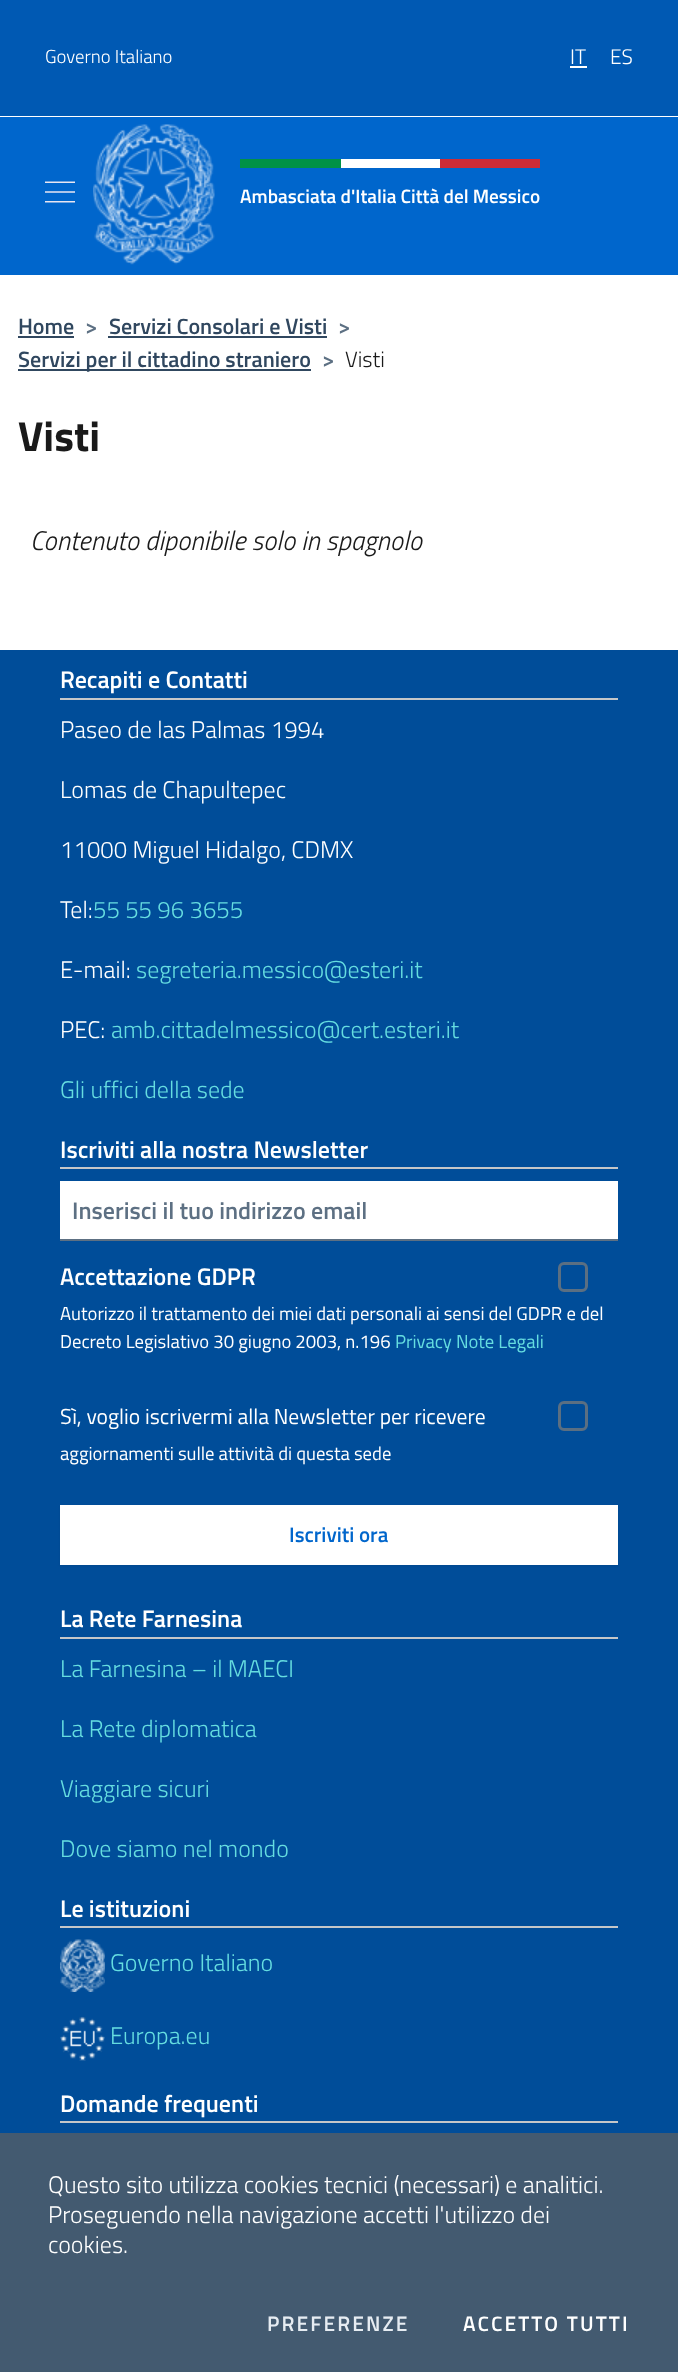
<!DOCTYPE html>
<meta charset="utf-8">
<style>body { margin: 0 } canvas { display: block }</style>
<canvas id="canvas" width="678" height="2372"></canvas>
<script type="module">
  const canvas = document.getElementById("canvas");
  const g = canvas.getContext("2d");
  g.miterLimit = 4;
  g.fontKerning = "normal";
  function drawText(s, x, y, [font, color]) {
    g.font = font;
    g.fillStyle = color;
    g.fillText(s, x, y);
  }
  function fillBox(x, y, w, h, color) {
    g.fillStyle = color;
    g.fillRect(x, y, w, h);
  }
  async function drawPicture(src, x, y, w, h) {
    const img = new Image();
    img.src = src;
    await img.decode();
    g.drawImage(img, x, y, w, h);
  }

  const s1 = ["300 18.75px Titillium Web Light", "#FFFFFF"];
  const s2 = ["300 21px Titillium Web Light", "#FFFFFF"];
  const s3 = ["600 19.25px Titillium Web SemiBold", "#FFFFFF"];
  const s4 = ["600 22.1px Titillium Web SemiBold", "#30475F"];
  const s5 = ["600 22.1px Titillium Web SemiBold", "#5D7083"];
  const s6 = ["300 22.1px Titillium Web Light", "#1A1A1A"];
  const s7 = ["bold 42px Titillium Web", "#1A1A1A"];
  const s8 = ["italic 300 27px Titillium Web Light", "#1A1A1A"];
  const s9 = ["600 24px Titillium Web SemiBold", "#FFFFFF"];
  const s10 = ["300 24px Titillium Web Light", "#FFFFFF"];
  const s11 = ["300 24px Titillium Web Light", "#65DDE0"];
  const s12 = ["600 24px Titillium Web SemiBold", "#5D7083"];
  const s13 = ["18.65px Titillium Web", "#FFFFFF"];
  const s14 = ["18.65px Titillium Web", "#65DDE0"];
  const s15 = ["21.6px Titillium Web", "#FFFFFF"];
  const s16 = ["600 21px Titillium Web SemiBold", "#0066CC"];
  const s17 = ["600 21px Titillium Web SemiBold", "#E6ECF2"];
  const s18 = ["600 21px Titillium Web SemiBold", "#FFFFFF"];

  fillBox(0, 0, 678, 2372, "#FFFFFF");
  fillBox(0, 0, 678, 116, "#0059B3");
  drawText("Governo Italiano", 45, 63, s1);
  drawText("IT", 570, 64, s2);
  fillBox(570, 66, 17, 2, "#FFFFFF");
  drawText("ES", 610, 64, s2);
  fillBox(0, 117, 678, 158, "#0066CC");
  await drawPicture("pic1.png", 45, 181, 30, 22);
  await drawPicture("pic2.png", 93, 124, 122, 141);
  fillBox(240, 159, 101, 9, "#009246");
  fillBox(341, 159, 99, 9, "#FFFFFF");
  fillBox(440, 159, 100, 9, "#CE2B37");
  drawText("Ambasciata d'Italia Città del Messico", 240, 203, s3);
  drawText("Home", 18, 334, s4);
  fillBox(18, 336, 56, 2, "#30475F");
  drawText(">", 85, 334, s5);
  drawText("Servizi Consolari e Visti", 109, 334, s4);
  fillBox(108, 336, 219, 2, "#30475F");
  drawText(">", 338, 334, s5);
  fillBox(18, 369, 293, 2, "#30475F");
  drawText("Servizi per il cittadino straniero", 18, 367, s4);
  drawText(">", 322, 367, s5);
  drawText("Visti", 345, 367, s6);
  drawText("Visti", 18, 451, s7);
  drawText("Contenuto diponibile solo in spagnolo", 30, 550, s8);
  fillBox(0, 650, 678, 1483, "#004D99");
  fillBox(60, 698, 558, 2, "#C5C7C9");
  drawText("Recapiti e Contatti", 60, 688, s9);
  drawText("Paseo de las Palmas 1994", 60, 738, s10);
  drawText("Lomas de Chapultepec", 60, 798, s10);
  drawText("11000 Miguel Hidalgo, CDMX", 60, 858, s10);
  drawText("Tel:", 60, 918, s10);
  drawText("55 55 96 3655", 93, 918, s11);
  drawText("E-mail:", 60, 978, s10);
  drawText("segreteria.messico@esteri.it", 136, 978, s11);
  drawText("PEC:", 60, 1038, s10);
  drawText("amb.cittadelmessico@cert.esteri.it", 111, 1038, s11);
  drawText("Gli uffici della sede", 60, 1098, s11);
  fillBox(60, 1167, 558, 2, "#C5C7C9");
  drawText("Iscriviti alla nostra Newsletter", 60, 1158, s9);
  fillBox(60, 1181, 558, 58, "#FFFFFF");
  fillBox(60, 1239, 558, 2, "#5D7083");
  drawText("Inserisci il tuo indirizzo email", 72, 1219, s12);
  drawText("Accettazione GDPR", 60, 1285, s9);
  g.beginPath();
  g.roundRect(559.5, 1263.5, 27, 27, 4.5);
  g.strokeStyle = "#5B6F82";
  g.lineWidth = 3;
  g.stroke();
  drawText("Autorizzo il trattamento dei miei dati personali ai sensi del GDPR e del", 60, 1320, s13);
  drawText("Decreto Legislativo 30 giugno 2003, n.196", 60, 1348, s13);
  drawText("Privacy Note Legali", 395, 1348, s14);
  drawText("Sì, voglio iscrivermi alla Newsletter per ricevere", 60, 1424, s15);
  g.beginPath();
  g.roundRect(559.5, 1402.5, 27, 27, 4.5);
  g.stroke();
  drawText("aggiornamenti sulle attività di questa sede", 60, 1460, s13);
  g.fillStyle = "rgba(0, 0, 0, 0.07)";
  g.filter = "blur(1px)";
  g.beginPath();
  g.rect(60, 1506, 558, 60);
  g.fill();
  g.filter = "none";
  fillBox(60, 1505, 558, 60, "#FFFFFF");
  drawText("Iscriviti ora", 289, 1542, s16);
  fillBox(60, 1637, 558, 2, "#C5C7C9");
  drawText("La Rete Farnesina", 60, 1627, s9);
  drawText("La Farnesina – il MAECI", 60, 1677, s11);
  drawText("La Rete diplomatica", 60, 1737, s11);
  drawText("Viaggiare sicuri", 60, 1797, s11);
  drawText("Dove siamo nel mondo", 60, 1857, s11);
  fillBox(60, 1926, 558, 2, "#C5C7C9");
  drawText("Le istituzioni", 60, 1917, s9);
  await drawPicture("pic3.png", 60, 1939, 45, 53);
  drawText("Governo Italiano", 110, 1971, s11);
  await drawPicture("pic4.png", 60, 2016, 45, 45);
  drawText("Europa.eu", 110, 2044, s11);
  fillBox(60, 2121, 558, 2, "#C5C7C9");
  drawText("Domande frequenti", 60, 2112, s9);
  fillBox(0, 2133, 678, 239, "#435A70");
  drawText("Questo sito utilizza cookies tecnici (necessari) e analitici.", 48, 2193, s10);
  drawText("Proseguendo nella navigazione accetti l'utilizzo dei", 48, 2223, s10);
  drawText("cookies.", 48, 2253, s10);
  g.letterSpacing = "2.1px";
  drawText("PREFERENZE", 267, 2331, s17);
  drawText("ACCETTO TUTTI", 463, 2331, s18);
</script>
